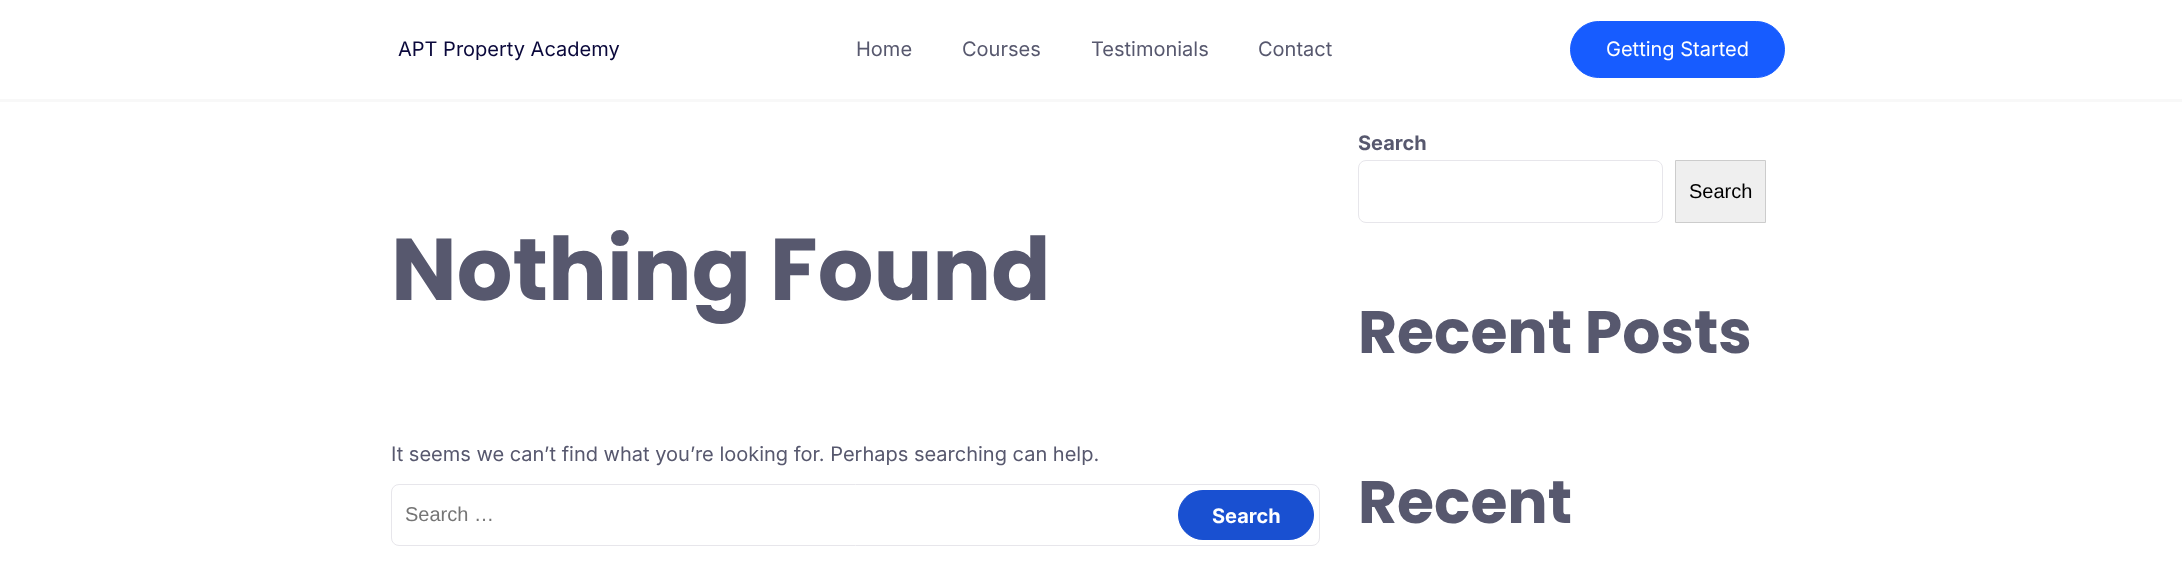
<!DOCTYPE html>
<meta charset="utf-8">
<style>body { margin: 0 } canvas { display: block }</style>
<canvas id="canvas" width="2182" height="580"></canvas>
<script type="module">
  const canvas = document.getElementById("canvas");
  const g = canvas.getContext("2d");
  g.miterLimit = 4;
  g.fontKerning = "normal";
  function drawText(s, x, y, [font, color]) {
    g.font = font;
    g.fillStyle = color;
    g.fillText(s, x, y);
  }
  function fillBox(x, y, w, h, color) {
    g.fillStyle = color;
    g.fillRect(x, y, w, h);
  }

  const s1 = ["20px Inter", "#0A083B"];
  const s2 = ["20px Inter", "#57586E"];
  const s3 = ["20px Inter", "#FFFFFF"];
  const s4 = ["bold 87.5px Poppins", "#57586E"];
  const s5 = ["20px Liberation Sans", "#757575"];
  const s6 = ["bold 20px Inter", "#FFFFFF"];
  const s7 = ["bold 20px Inter", "#57586E"];
  const s8 = ["20px Liberation Sans", "#000000"];
  const s9 = ["bold 60px Poppins", "#57586E"];

  fillBox(0, 0, 2182, 580, "#FFFFFF");
  fillBox(0, 99, 2182, 3, "#F8F8F8");
  drawText("APT Property Academy", 398, 56, s1);
  drawText("Home", 856, 56, s2);
  drawText("Courses", 962, 56, s2);
  drawText("Testimonials", 1091, 56, s2);
  drawText("Contact", 1258, 56, s2);
  g.fillStyle = "#175CFF";
  g.beginPath();
  g.roundRect(1570.5, 21.5, 214, 56, 28);
  g.fill();
  g.strokeStyle = "#175CFF";
  g.stroke();
  drawText("Getting Started", 1606, 56, s3);
  drawText("Nothing Found", 391, 300, s4);
  drawText("It seems we can’t find what you’re looking for. Perhaps searching can help.", 391, 461, s2);
  g.beginPath();
  g.roundRect(391.5, 484.5, 928, 61, 7.5);
  g.strokeStyle = "#E7E6EB";
  g.stroke();
  drawText("Search …", 405, 521, s5);
  g.fillStyle = "#1950D1";
  g.beginPath();
  g.roundRect(1178.5, 490.5, 135, 49, 24.5);
  g.fill();
  g.strokeStyle = "#1950D1";
  g.stroke();
  drawText("Search", 1212, 523, s6);
  drawText("Search", 1358, 150, s7);
  g.beginPath();
  g.roundRect(1358.5, 160.5, 304, 62, 7.5);
  g.strokeStyle = "#E7E6EB";
  g.stroke();
  g.fillStyle = "#EFEFEF";
  g.beginPath();
  g.rect(1675.5, 160.5, 90, 62);
  g.fill();
  g.strokeStyle = "#CCCCCC";
  g.stroke();
  drawText("Search", 1689, 198, s8);
  drawText("Recent Posts", 1358, 353, s9);
  drawText("Recent", 1358, 523, s9);
</script>
